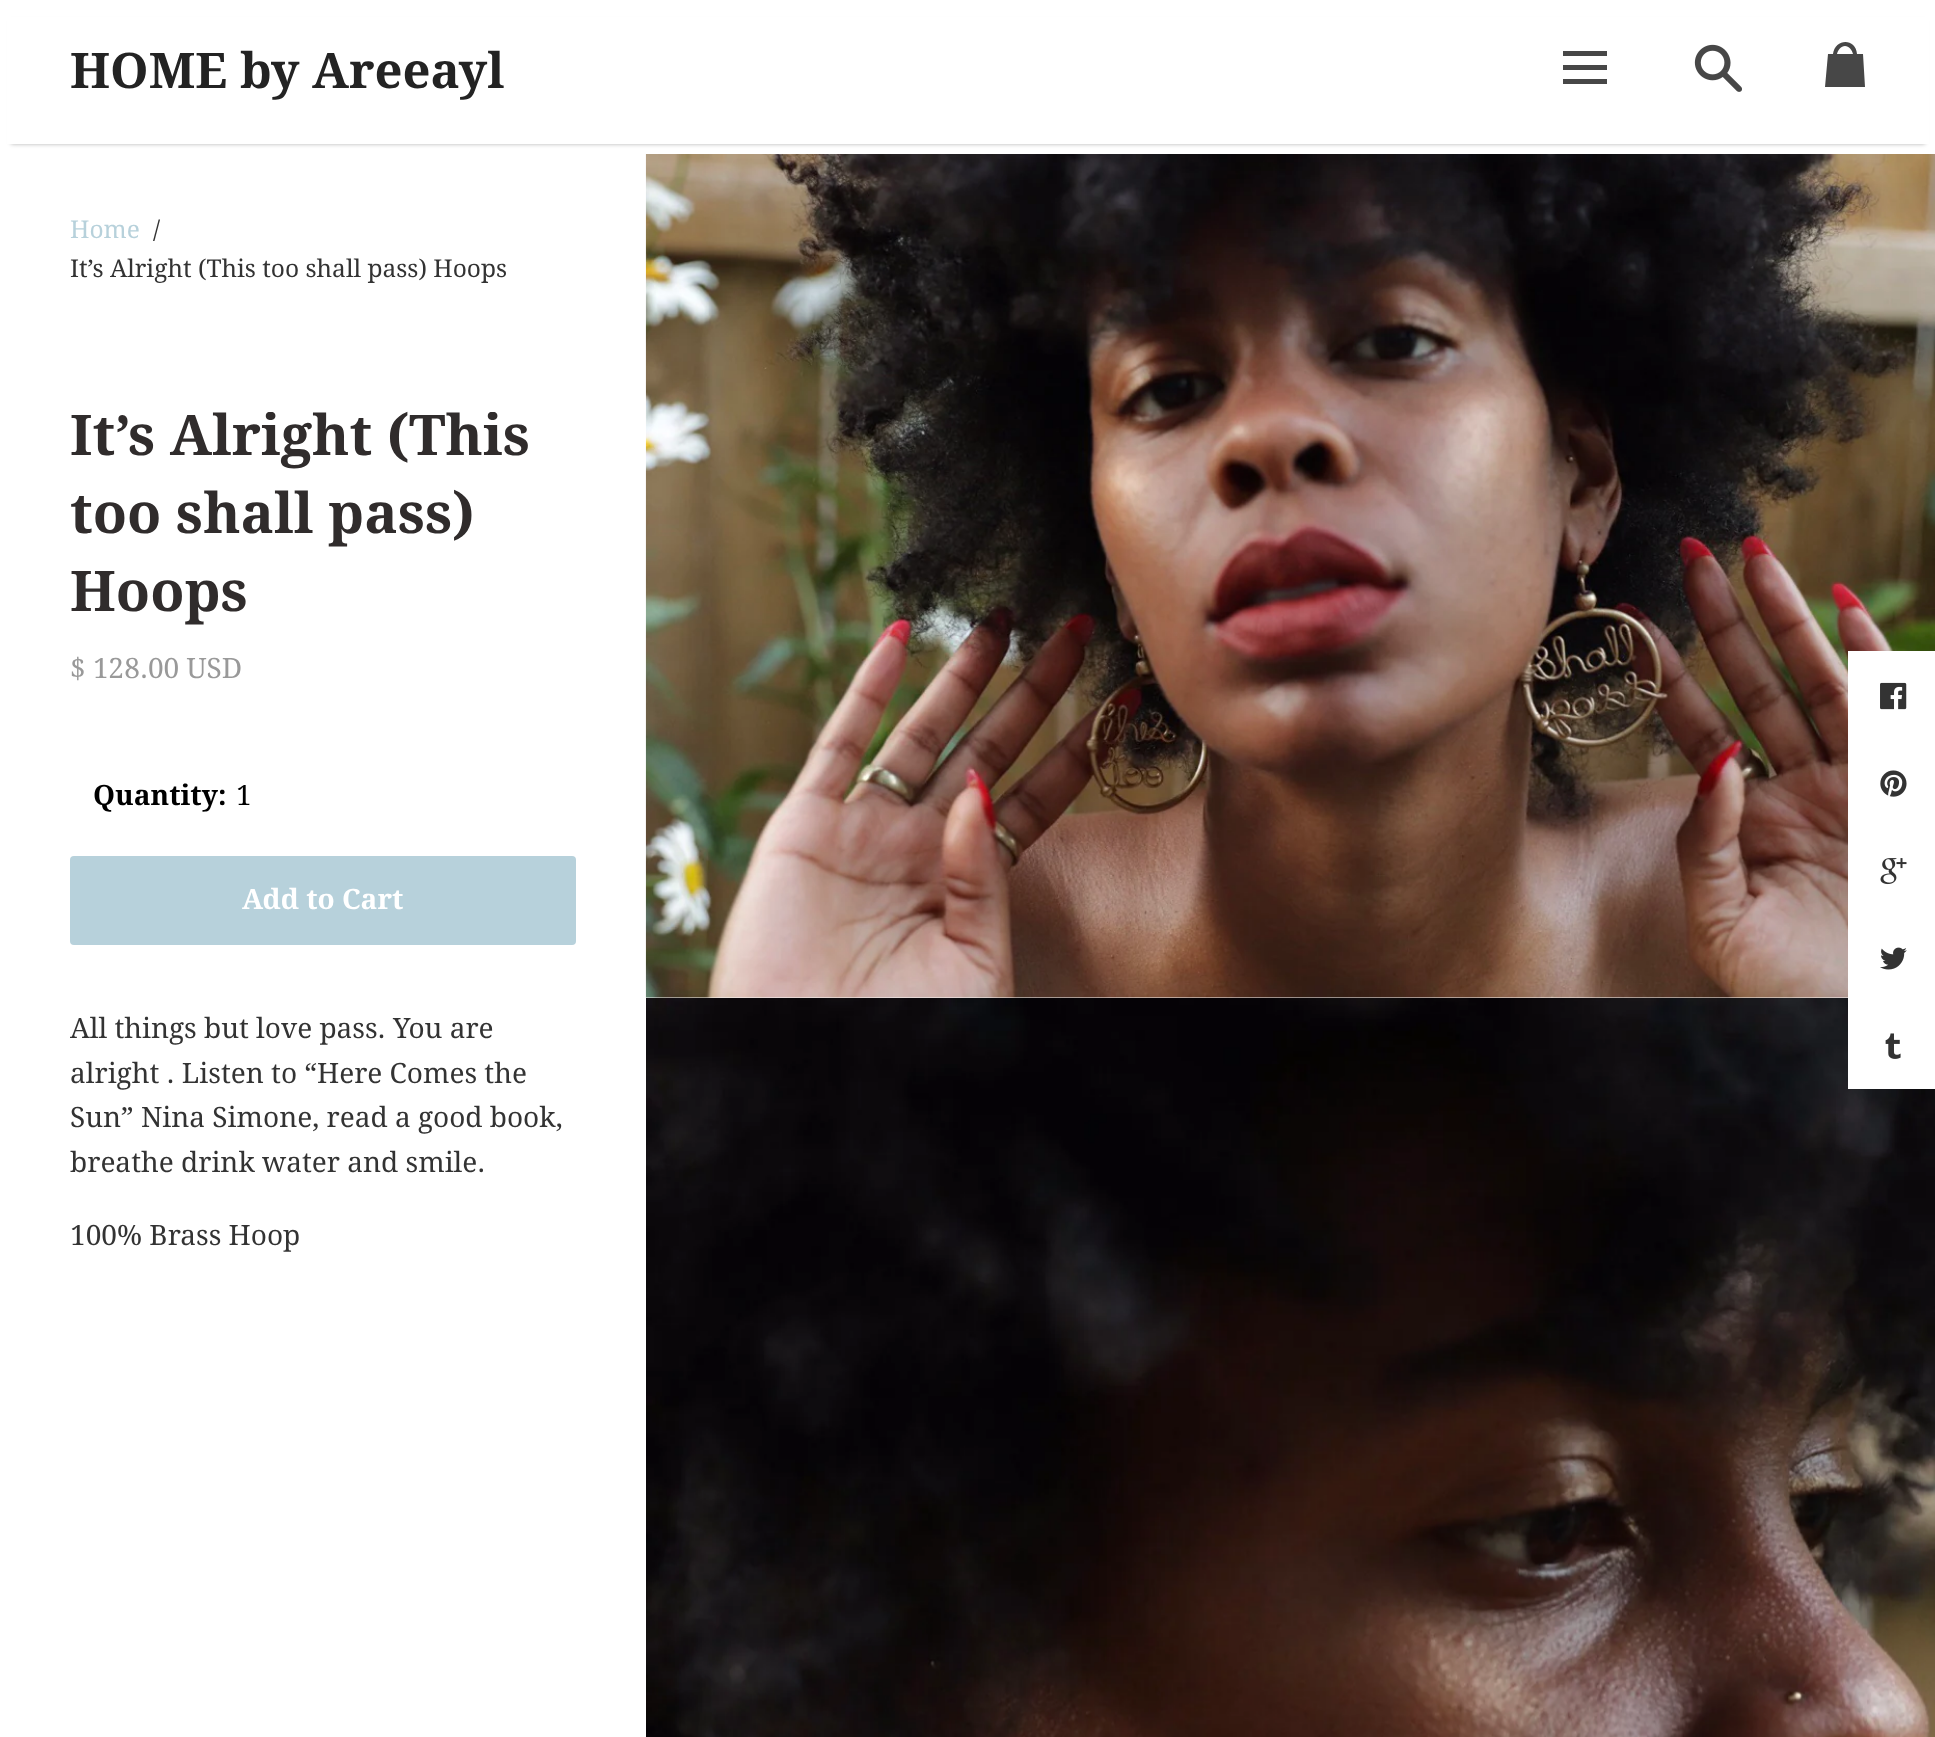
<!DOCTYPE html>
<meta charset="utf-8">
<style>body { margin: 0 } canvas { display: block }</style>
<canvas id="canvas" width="1935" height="1737"></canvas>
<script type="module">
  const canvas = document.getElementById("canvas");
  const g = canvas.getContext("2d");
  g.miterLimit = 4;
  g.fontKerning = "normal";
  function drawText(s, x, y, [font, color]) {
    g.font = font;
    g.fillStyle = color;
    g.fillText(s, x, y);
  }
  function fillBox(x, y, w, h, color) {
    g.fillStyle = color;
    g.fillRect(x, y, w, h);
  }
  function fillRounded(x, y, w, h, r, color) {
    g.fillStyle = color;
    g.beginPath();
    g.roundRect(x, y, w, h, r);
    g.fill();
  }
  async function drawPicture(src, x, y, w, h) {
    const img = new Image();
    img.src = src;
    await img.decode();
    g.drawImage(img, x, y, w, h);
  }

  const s1 = ["bold 49px Droid Serif", "#232323"];
  const s2 = ["24.5px Droid Serif", "#B7D1DB"];
  const s3 = ["24.5px Droid Serif", "#333333"];
  const s4 = ["bold 56px Droid Serif", "#302C2C"];
  const s5 = ["28px Droid Serif", "#999999"];
  const s6 = ["bold 28px Droid Serif", "#000000"];
  const s7 = ["28px Droid Serif", "#000000"];
  const s8 = ["bold 28px Droid Serif", "#FFFFFF"];
  const s9 = ["28px Droid Serif", "#333333"];

  fillBox(0, 0, 1935, 1737, "#FFFFFF");
  g.fillStyle = "rgba(0, 0, 0, 0.3)";
  g.filter = "blur(2px)";
  g.beginPath();
  g.rect(11, 21, 1914, 123);
  g.fill();
  g.filter = "none";
  fillBox(7, 17, 1922, 127, "#FFFFFF");
  drawText("HOME by Areeayl", 70, 88, s1);
  fillBox(1563, 51, 44, 5, "#474747");
  fillBox(1563, 65, 44, 5, "#474747");
  fillBox(1563, 79, 44, 5, "#474747");
  await drawPicture("pic1.png", 1694, 44, 48, 48);
  g.beginPath();
  g.moveTo(1863, 54);
  g.lineTo(1857, 54);
  g.bezierCurveTo(1856, 38, 1835, 38, 1833, 54);
  g.lineTo(1828, 54);
  g.lineTo(1825, 87);
  g.lineTo(1865, 87);
  g.closePath();
  g.moveTo(1845, 46);
  g.bezierCurveTo(1849, 46, 1852, 50, 1853, 54);
  g.lineTo(1837, 54);
  g.bezierCurveTo(1838, 50, 1841, 46, 1845, 46);
  g.closePath();
  g.fill("evenodd");
  drawText("Home", 70, 238, s2);
  drawText("/", 153, 238, s3);
  drawText("It’s Alright (This too shall pass) Hoops", 70, 277, s3);
  drawText("It’s Alright (This", 70, 455, s4);
  drawText("too shall pass)", 70, 533, s4);
  drawText("Hoops", 70, 611, s4);
  drawText("$ 128.00 USD", 70, 678, s5);
  drawText("Quantity:", 93, 805, s6);
  drawText("1", 236, 805, s7);
  fillRounded(70, 856, 506, 89, 4, "#B7D1DB");
  drawText("Add to Cart", 242, 909, s8);
  drawText("All things but love pass. You are", 70, 1038, s9);
  drawText("alright . Listen to “Here Comes the", 70, 1083, s9);
  drawText("Sun” Nina Simone, read a good book,", 70, 1127, s9);
  drawText("breathe drink water and smile.", 70, 1172, s9);
  drawText("100% Brass Hoop", 70, 1245, s9);
  await drawPicture("pic2.png", 645, 154, 1290, 844);
  await drawPicture("pic3.png", 646, 998, 1289, 739);
  fillBox(1848, 651, 87, 438, "#FFFFFF");
  await drawPicture("pic4.png", 1880, 682, 27, 28);
  await drawPicture("pic5.png", 1880, 770, 27, 27);
  await drawPicture("pic6.png", 1880, 858, 27, 27);
  await drawPicture("pic7.png", 1880, 947, 27, 23);
  await drawPicture("pic8.png", 1885, 1033, 16, 26);
</script>
